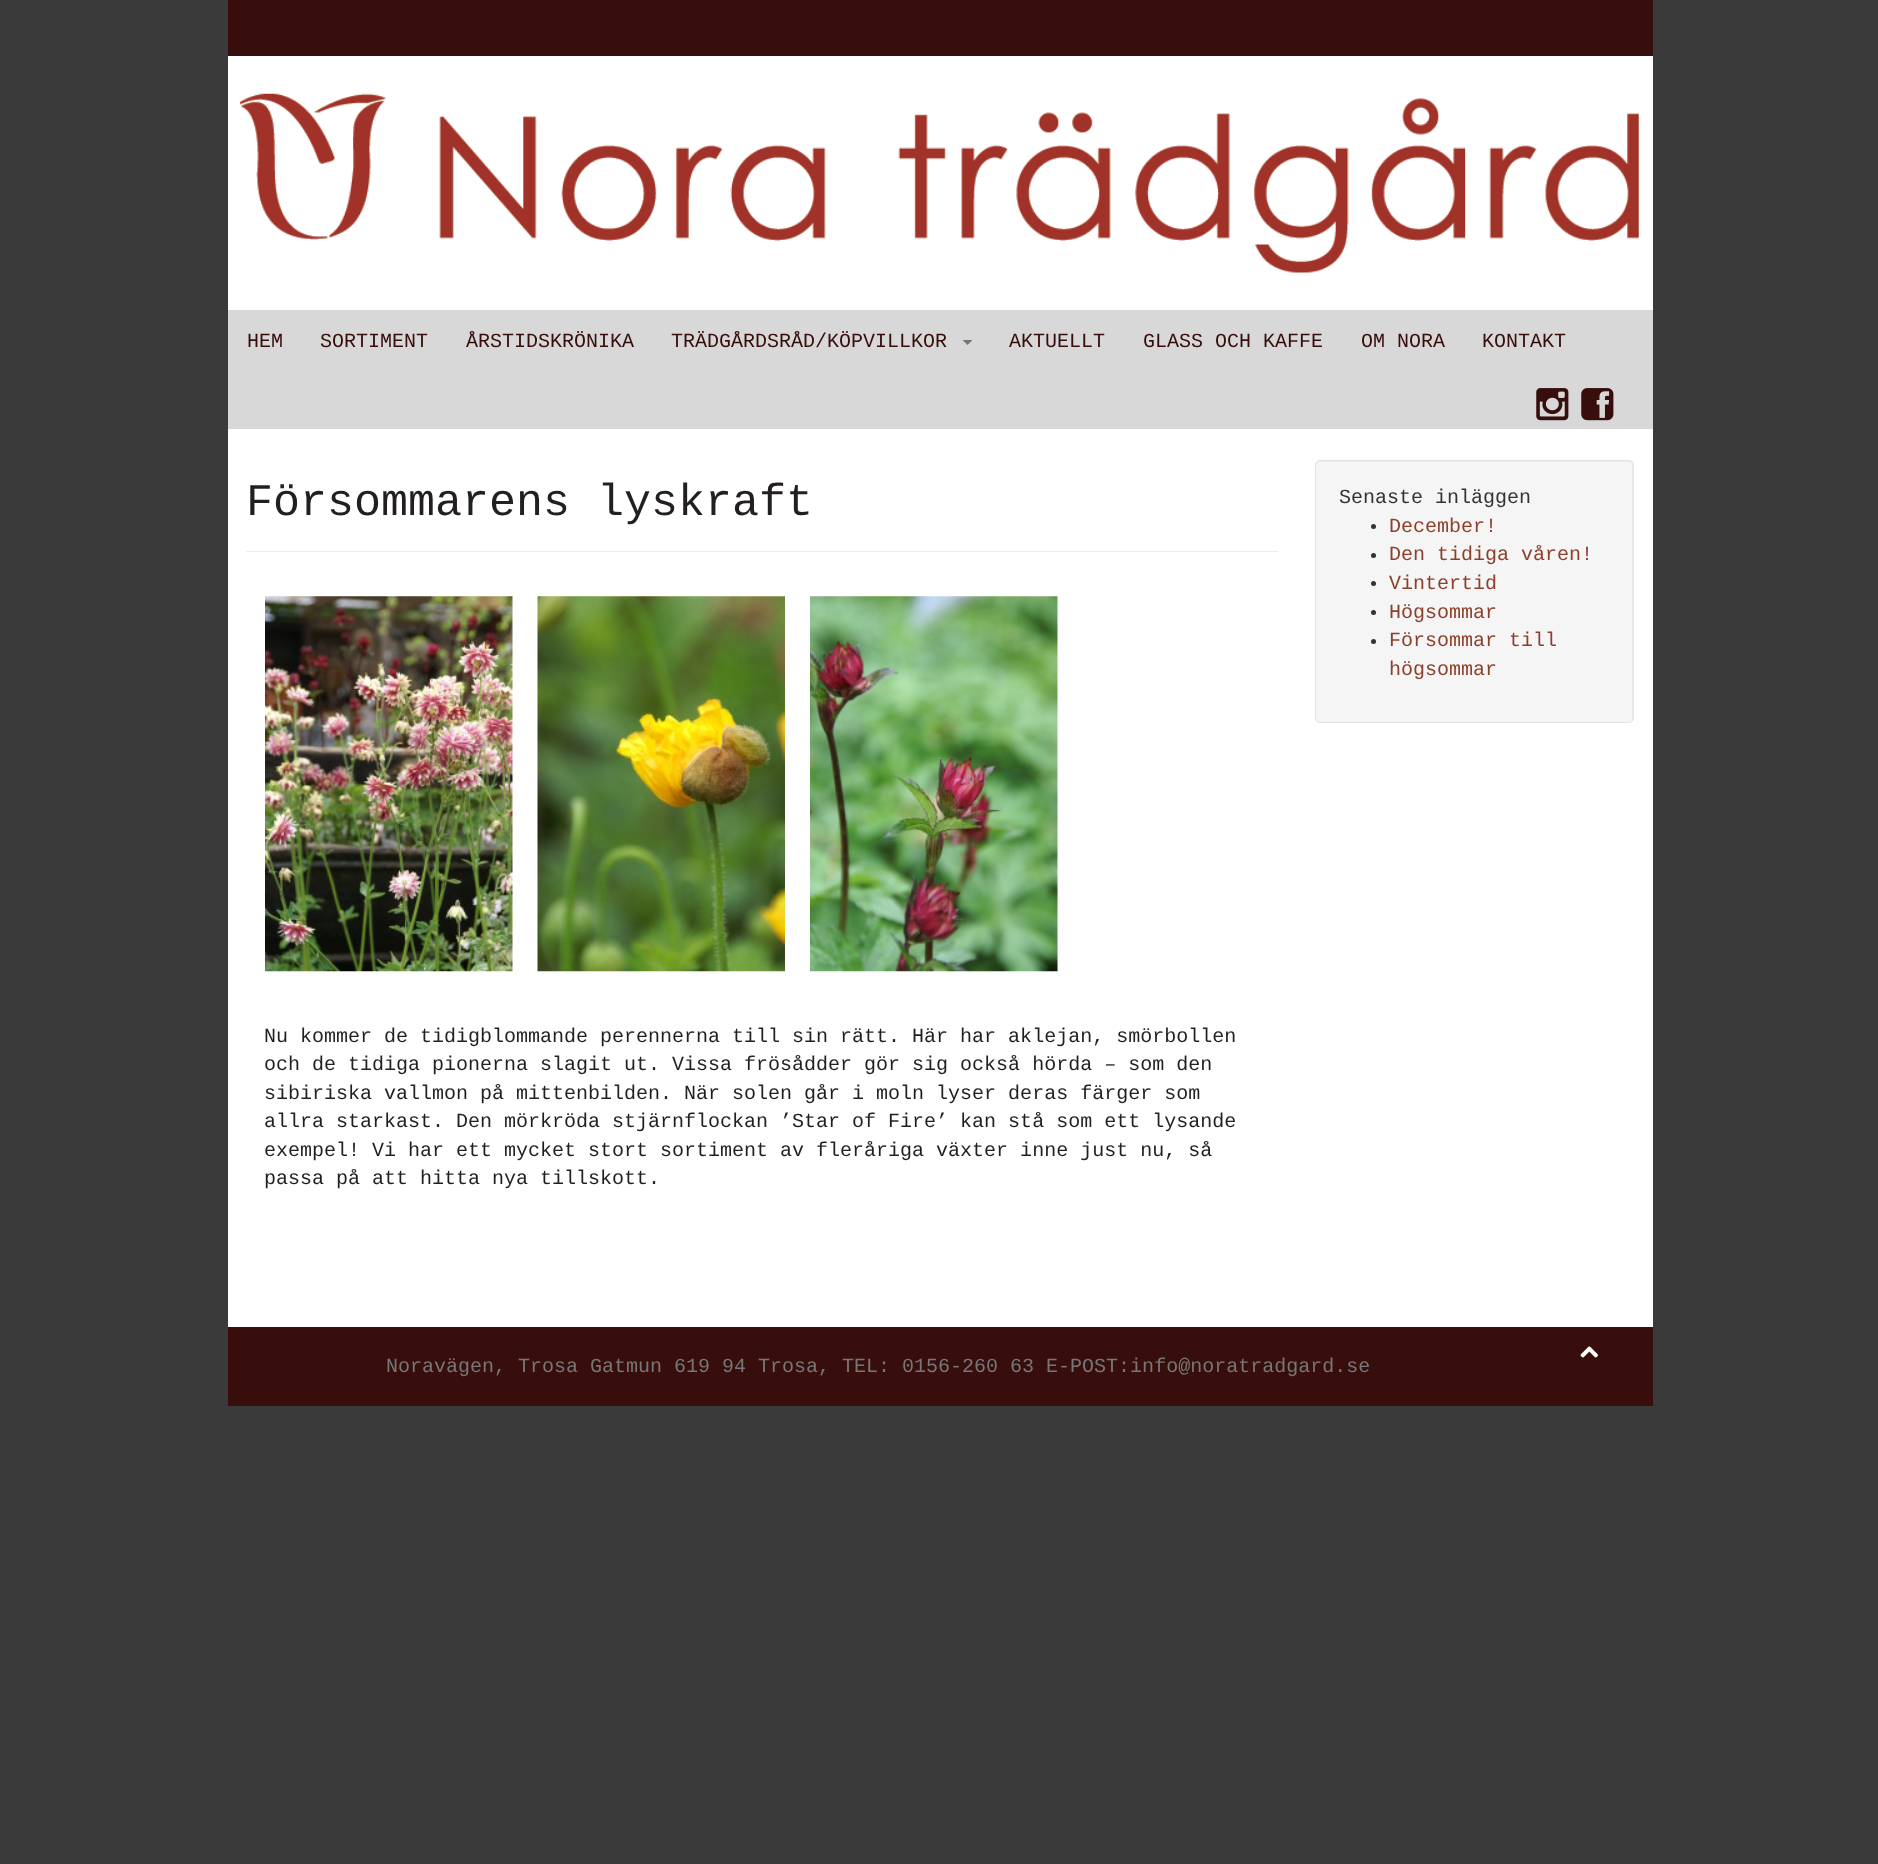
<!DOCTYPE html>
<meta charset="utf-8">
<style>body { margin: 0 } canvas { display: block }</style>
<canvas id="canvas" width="1878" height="1864"></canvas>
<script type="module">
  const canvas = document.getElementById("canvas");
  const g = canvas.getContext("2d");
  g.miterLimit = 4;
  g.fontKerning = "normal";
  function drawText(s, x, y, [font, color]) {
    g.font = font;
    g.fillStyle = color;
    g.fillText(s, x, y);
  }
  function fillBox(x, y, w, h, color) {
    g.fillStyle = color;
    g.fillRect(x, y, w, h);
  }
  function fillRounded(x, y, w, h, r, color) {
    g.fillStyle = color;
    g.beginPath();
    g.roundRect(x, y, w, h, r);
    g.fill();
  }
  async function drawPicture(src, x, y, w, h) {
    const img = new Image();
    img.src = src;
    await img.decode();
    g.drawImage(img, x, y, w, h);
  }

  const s1 = ["20px Liberation Mono", "#370E0C"];
  const s2 = ["45px Liberation Mono", "#231F20"];
  const s3 = ["20px Liberation Mono", "#231F20"];
  const s4 = ["20px Liberation Mono", "#333333"];
  const s5 = ["20px Liberation Mono", "#8C402C"];
  const s6 = ["20px Liberation Mono", "#777777"];

  fillBox(0, 0, 1878, 1864, "#3B3A3A");
  fillBox(228, 0, 1425, 56, "#370E0C");
  fillBox(228, 56, 1425, 1271, "#FFFFFF");
  await drawPicture("pic1.png", 240, 93, 1399, 180);
  fillBox(228, 310, 1425, 119, "#D8D8D8");
  drawText("HEM", 247, 347, s1);
  drawText("SORTIMENT", 320, 347, s1);
  drawText("ÅRSTIDSKRÖNIKA", 466, 347, s1);
  drawText("TRÄDGÅRDSRÅD/KÖPVILLKOR", 671, 347, s1);
  g.fillStyle = "#777777";
  g.beginPath();
  g.moveTo(962.5, 340);
  g.lineTo(972.5, 340);
  g.lineTo(967.5, 345);
  g.closePath();
  g.fill();
  drawText("AKTUELLT", 1009, 347, s1);
  drawText("GLASS OCH KAFFE", 1143, 347, s1);
  drawText("OM NORA", 1361, 347, s1);
  drawText("KONTAKT", 1482, 347, s1);
  await drawPicture("pic2.png", 1536, 388, 33, 33);
  await drawPicture("pic3.png", 1581, 388, 33, 33);
  fillBox(246, 551, 1032, 1, "#EEEEEE");
  drawText("Försommarens lyskraft", 246, 515, s2);
  await drawPicture("pic4.png", 265, 596, 248, 376);
  await drawPicture("pic5.png", 537, 596, 248, 376);
  await drawPicture("pic6.png", 810, 596, 248, 376);
  drawText("Nu kommer de tidigblommande perennerna till sin rätt. Här har aklejan, smörbollen", 264, 1042, s3);
  drawText("och de tidiga pionerna slagit ut. Vissa frösådder gör sig också hörda – som den", 264, 1070, s3);
  drawText("sibiriska vallmon på mittenbilden. När solen går i moln lyser deras färger som", 264, 1099, s3);
  drawText("allra starkast. Den mörkröda stjärnflockan ’Star of Fire’ kan stå som ett lysande", 264, 1127, s3);
  drawText("exempel! Vi har ett mycket stort sortiment av fleråriga växter inne just nu, så", 264, 1156, s3);
  drawText("passa på att hitta nya tillskott.", 264, 1184, s3);
  fillRounded(1315, 460, 319, 263, 5, "#F5F5F5");
  g.fillStyle = "#E9E9E9";
  g.beginPath();
  g.moveTo(1320, 462);
  g.lineTo(1629, 462);
  g.bezierCurveTo(1631, 462, 1632, 464, 1632, 466);
  g.lineTo(1632, 720);
  g.bezierCurveTo(1633, 719, 1633, 718, 1633, 717);
  g.lineTo(1633, 465);
  g.bezierCurveTo(1633, 463, 1631, 461, 1629, 461);
  g.lineTo(1320, 461);
  g.bezierCurveTo(1318, 461, 1316, 463, 1316, 465);
  g.lineTo(1316, 466);
  g.bezierCurveTo(1316, 464, 1318, 462, 1320, 462);
  g.closePath();
  g.fill();
  g.beginPath();
  g.roundRect(1315.5, 460.5, 318, 262, 4.5);
  g.strokeStyle = "#E3E3E3";
  g.stroke();
  drawText("Senaste inläggen", 1339, 503, s4);
  g.beginPath();
  g.arc(1373.5, 526.5, 2.5, 0, Math.PI * 2);
  g.fill();
  drawText("December!", 1389, 532, s5);
  g.fillStyle = "#333333";
  g.beginPath();
  g.arc(1373.5, 555.5, 2.5, 0, Math.PI * 2);
  g.fill();
  drawText("Den tidiga våren!", 1389, 560, s5);
  g.fillStyle = "#333333";
  g.beginPath();
  g.arc(1373.5, 583.5, 2.5, 0, Math.PI * 2);
  g.fill();
  drawText("Vintertid", 1389, 589, s5);
  g.fillStyle = "#333333";
  g.beginPath();
  g.arc(1373.5, 612.5, 2.5, 0, Math.PI * 2);
  g.fill();
  drawText("Högsommar", 1389, 618, s5);
  g.fillStyle = "#333333";
  g.beginPath();
  g.arc(1373.5, 641.5, 2.5, 0, Math.PI * 2);
  g.fill();
  drawText("Försommar till", 1389, 646, s5);
  drawText("högsommar", 1389, 675, s5);
  fillBox(228, 1327, 1425, 79, "#370E0C");
  await drawPicture("pic7.png", 1580, 1346, 18, 12);
  drawText("Noravägen, Trosa Gatmun 619 94 Trosa, TEL: 0156-260 63 E-POST:info@noratradgard.se", 386, 1372, s6);
</script>
